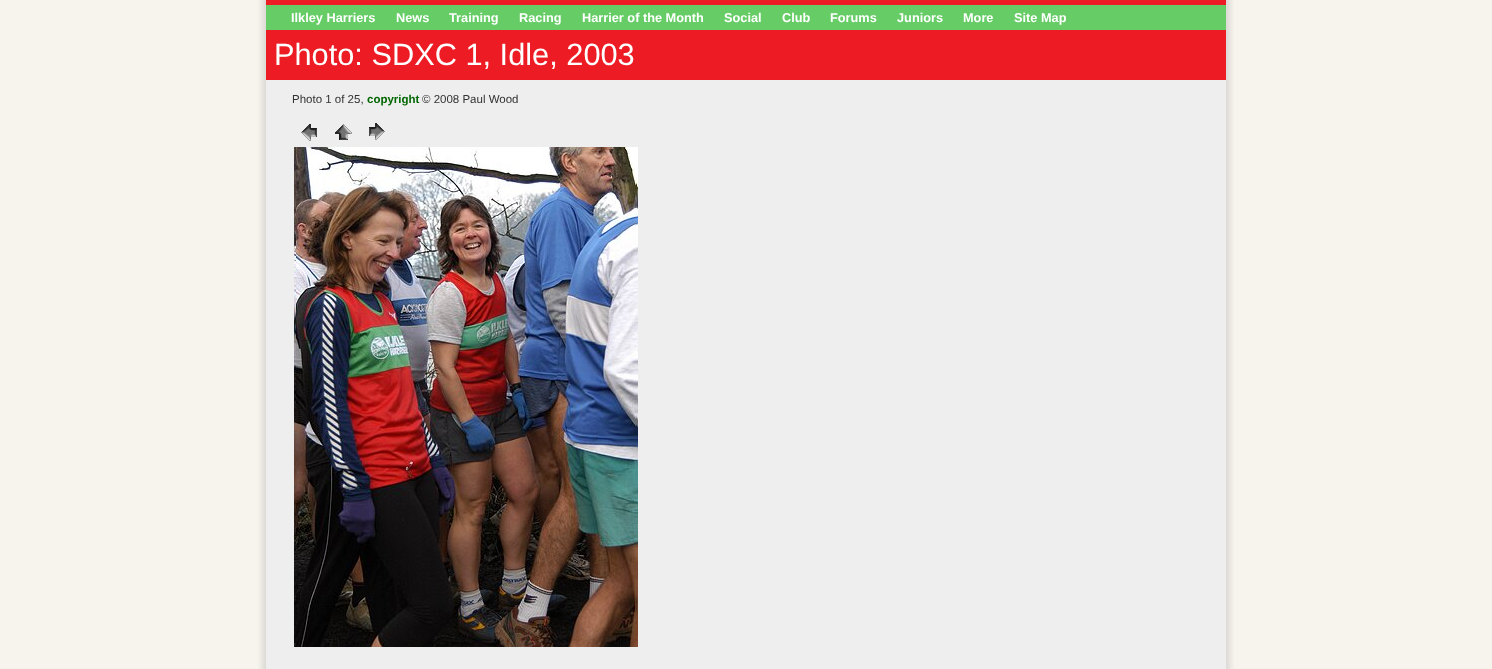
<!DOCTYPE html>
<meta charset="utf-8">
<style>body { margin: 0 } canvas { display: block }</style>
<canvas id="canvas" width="1492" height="669"></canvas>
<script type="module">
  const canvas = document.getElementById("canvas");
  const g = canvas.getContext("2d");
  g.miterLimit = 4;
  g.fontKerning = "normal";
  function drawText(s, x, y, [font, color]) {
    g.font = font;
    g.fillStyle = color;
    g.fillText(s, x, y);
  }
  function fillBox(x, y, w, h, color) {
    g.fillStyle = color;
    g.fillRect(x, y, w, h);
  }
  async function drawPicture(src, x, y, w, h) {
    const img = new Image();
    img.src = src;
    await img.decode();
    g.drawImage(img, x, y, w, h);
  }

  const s1 = ["bold 12.75px Liberation Sans", "#FFFFFF"];
  const s2 = ["30.75px Liberation Sans", "#FFFFFF"];
  const s3 = ["11.5px Liberation Sans", "#333333"];
  const s4 = ["bold 11.5px Liberation Sans", "#006600"];

  fillBox(0, 0, 1492, 669, "#F7F4EE");
  await drawPicture("pic1.png", 258, 0, 976, 669);
  fillBox(266, 30, 960, 50, "#ED1B24");
  fillBox(266, 5, 960, 25, "#66CC66");
  fillBox(266, 0, 960, 5, "#ED1B24");
  drawText("Ilkley Harriers", 291, 22, s1);
  drawText("News", 396, 22, s1);
  drawText("Training", 449, 22, s1);
  drawText("Racing", 519, 22, s1);
  drawText("Harrier of the Month", 582, 22, s1);
  drawText("Social", 724, 22, s1);
  drawText("Club", 782, 22, s1);
  drawText("Forums", 830, 22, s1);
  drawText("Juniors", 897, 22, s1);
  drawText("More", 963, 22, s1);
  drawText("Site Map", 1014, 22, s1);
  drawText("Photo: SDXC 1, Idle, 2003", 274, 65, s2);
  drawText("Photo 1 of 25,", 292, 103, s3);
  drawText("copyright", 367, 103, s4);
  drawText("© 2008 Paul Wood", 422, 103, s3);
  await drawPicture("pic2.png", 301, 124, 16, 17);
  await drawPicture("pic3.png", 335, 124, 17, 16);
  await drawPicture("pic4.png", 369, 123, 16, 17);
  await drawPicture("pic5.png", 294, 147, 344, 500);
</script>
